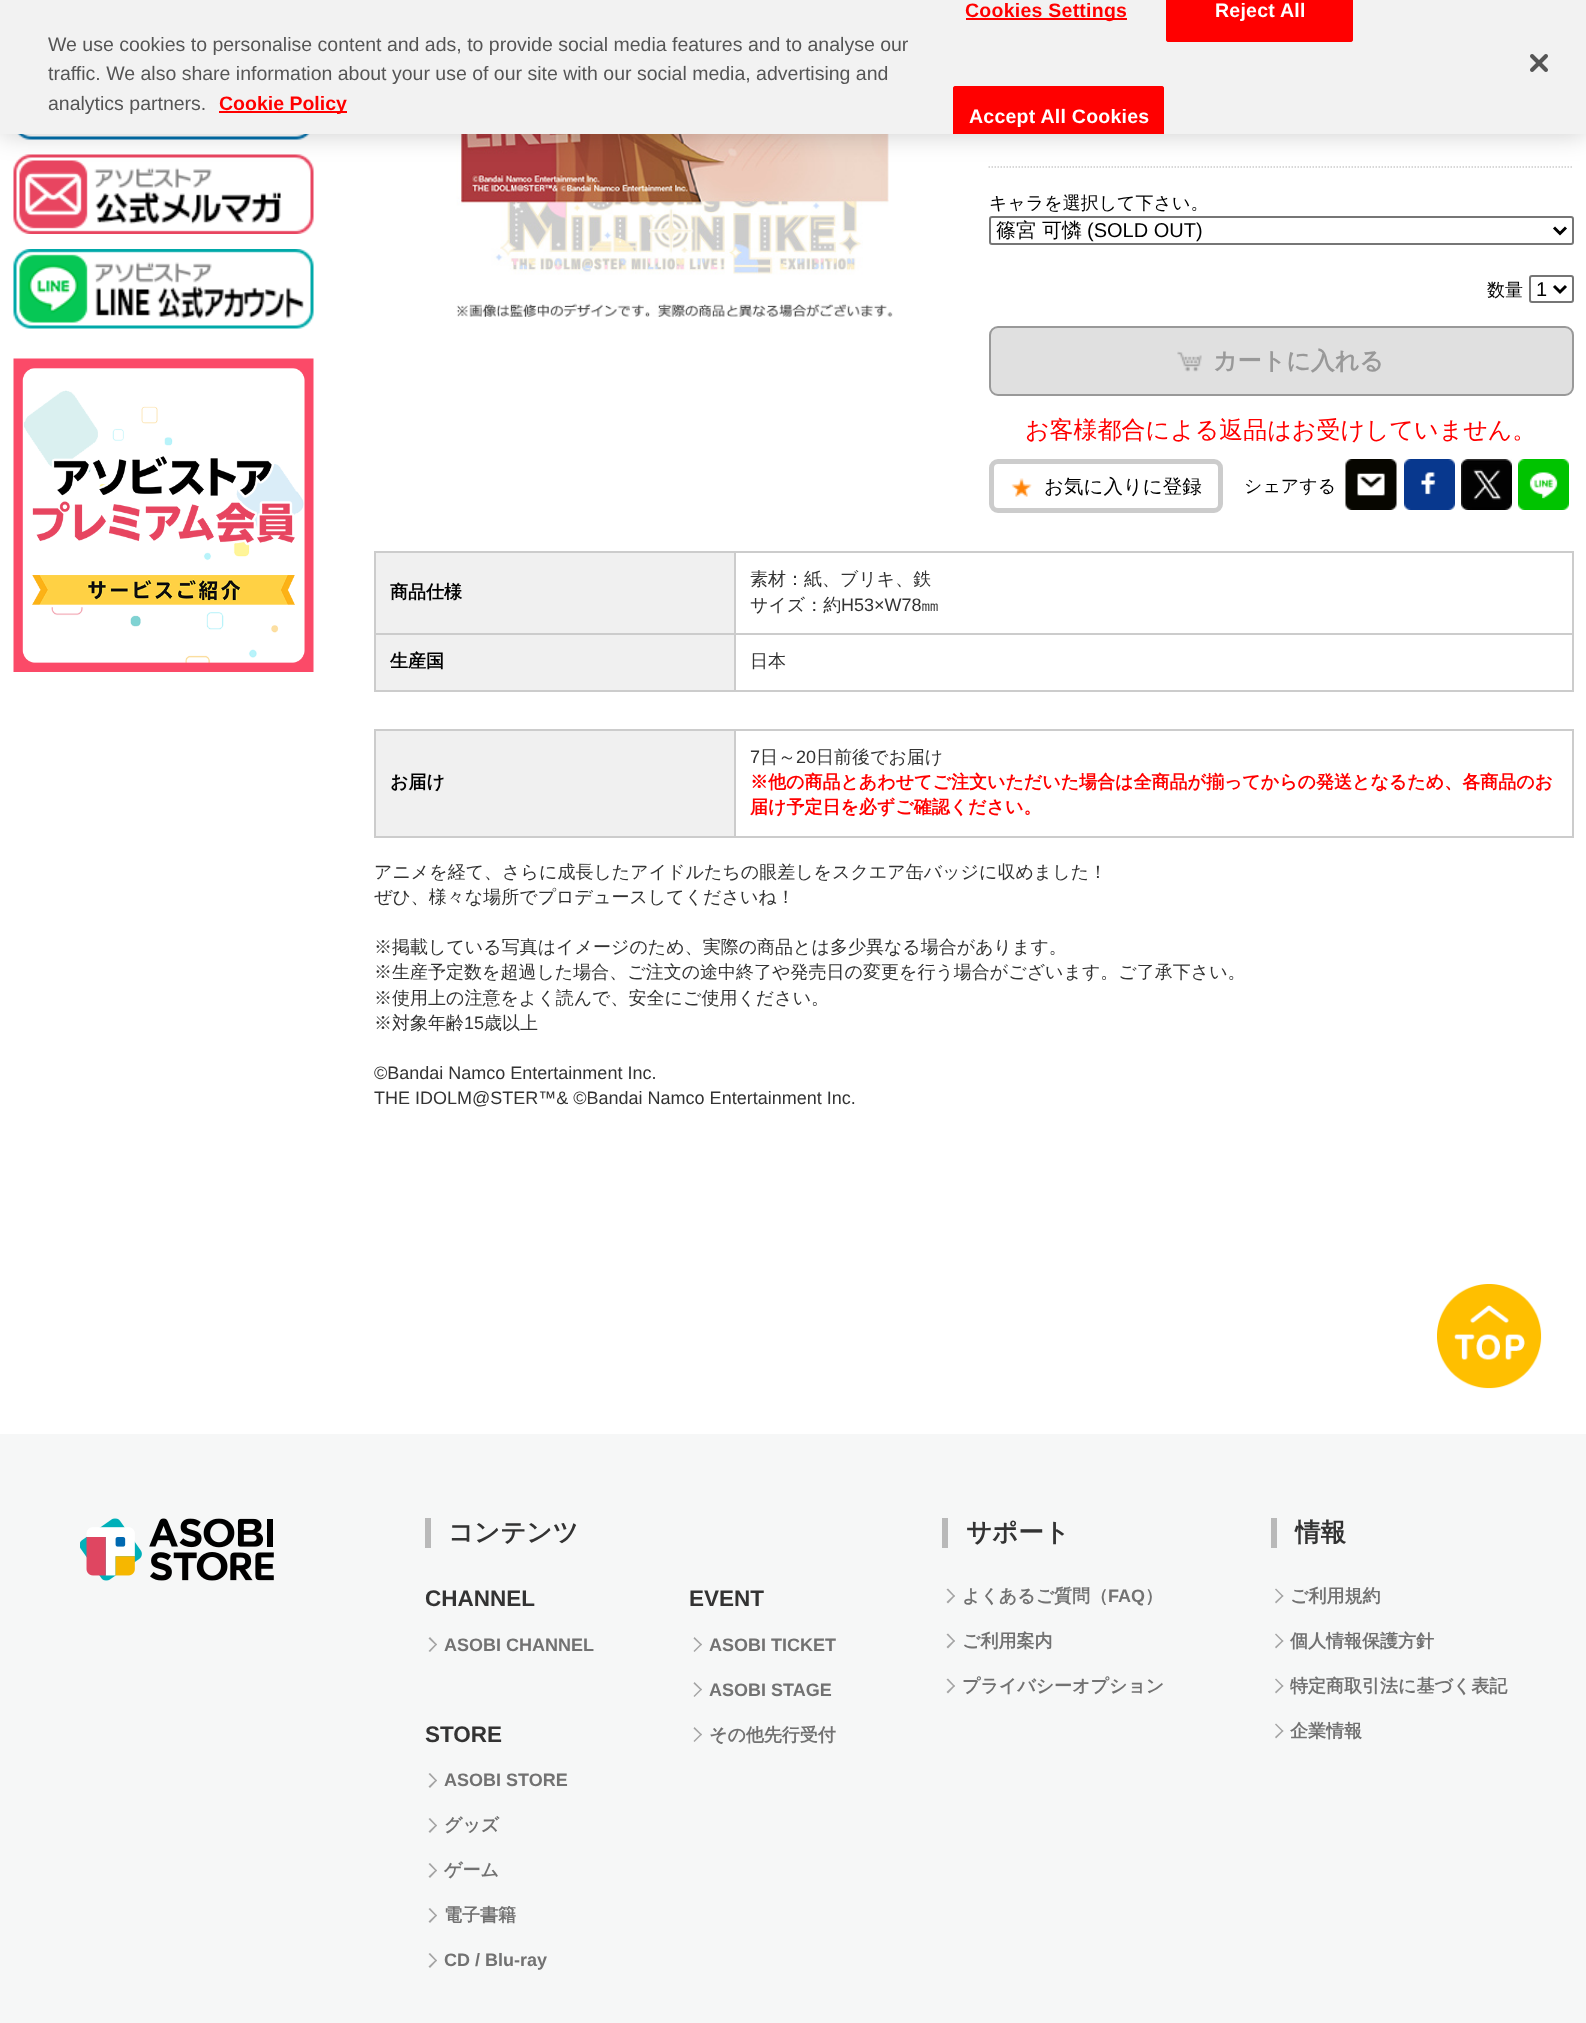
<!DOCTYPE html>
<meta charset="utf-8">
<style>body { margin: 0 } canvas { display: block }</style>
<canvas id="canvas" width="1586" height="2023"></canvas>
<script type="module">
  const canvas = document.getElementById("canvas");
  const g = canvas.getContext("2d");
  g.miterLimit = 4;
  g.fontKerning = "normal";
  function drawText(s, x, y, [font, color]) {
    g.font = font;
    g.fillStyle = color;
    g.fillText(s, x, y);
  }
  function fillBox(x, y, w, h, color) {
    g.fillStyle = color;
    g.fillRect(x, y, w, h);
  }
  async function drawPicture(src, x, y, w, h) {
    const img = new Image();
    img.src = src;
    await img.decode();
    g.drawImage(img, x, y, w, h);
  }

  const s1 = ["19.5px Liberation Sans", "#555555"];
  const s2 = ["bold 19.5px Liberation Sans", "#FF0000"];
  const s3 = ["bold 19.5px Liberation Sans", "#FFFFFF"];
  const s4 = ["500 18px WenQuanYi Zen Hei", "#000000"];
  const s5 = ["500 20px WenQuanYi Zen Hei", "#000000"];
  const s6 = ["20px Liberation Sans", "#000000"];
  const s7 = ["bold 24px WenQuanYi Zen Hei", "#999999"];
  const s8 = ["500 24px WenQuanYi Zen Hei", "#FF0000"];
  const s9 = ["500 19.5px WenQuanYi Zen Hei", "#000000"];
  const s10 = ["bold 18px WenQuanYi Zen Hei", "#000000"];
  const s11 = ["500 18px WenQuanYi Zen Hei", "#333333"];
  const s12 = ["18px Liberation Sans", "#333333"];
  const s13 = ["bold 18px WenQuanYi Zen Hei", "#FF0000"];
  const s14 = ["bold 25.5px WenQuanYi Zen Hei", "#333333"];
  const s15 = ["bold 22.5px Liberation Sans", "#333333"];
  const s16 = ["bold 18px Liberation Sans", "#727272"];
  const s17 = ["bold 18px WenQuanYi Zen Hei", "#727272"];

  fillBox(0, 0, 1586, 2023, "#FFFFFF");
  await drawPicture("pic2.png", 17, 134, 293, 6);
  await drawPicture("pic3.png", 13, 154, 301, 80);
  await drawPicture("pic6.png", 456, 134, 437, 183);
  g.beginPath();
  g.moveTo(988.5, 167);
  g.lineTo(1573.5, 167);
  g.strokeStyle = "#CCCCCC";
  g.lineWidth = 1.5;
  g.setLineDash([1.5, 1.5]);
  g.stroke();
  g.fillStyle = "rgba(0, 0, 0, 0.2)";
  g.filter = "blur(13.5px)";
  g.beginPath();
  g.rect(0, 0, 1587, 134);
  g.fill();
  g.filter = "none";
  fillBox(0, 0, 1586, 134, "#F2F2F2");
  drawText("We use cookies to personalise content and ads, to provide social media features and to analyse our", 48, 51, s1);
  drawText("traffic. We also share information about your use of our site with our social media, advertising and", 48, 80, s1);
  drawText("analytics partners.", 48, 110, s1);
  fillBox(219, 111, 128, 2, "#FF0000");
  drawText("Cookie Policy", 219, 110, s2);
  fillBox(966, 18, 161, 2, "#FF0000");
  g.letterSpacing = "0.25px";
  drawText("Cookies Settings", 965, 17, s2);
  g.beginPath();
  g.roundRect(1166, 0, 187, 42, [0, 0, 3, 3]);
  g.fill();
  g.beginPath();
  g.roundRect(1167, -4, 185, 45, 2);
  g.strokeStyle = "#FF0000";
  g.lineWidth = 2;
  g.setLineDash([]);
  g.stroke();
  drawText("Reject All", 1215, 17, s3);
  g.fillStyle = "#FF0000";
  g.beginPath();
  g.roundRect(953, 86, 211, 48, [3, 3, 0, 0]);
  g.fill();
  g.save();
  g.beginPath();
  g.rect(0, 0, 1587, 134);
  g.clip();
  g.beginPath();
  g.roundRect(954, 87, 209, 59, 2);
  g.stroke();
  g.restore();
  drawText("Accept All Cookies", 969, 123, s3);
  await drawPicture("pic1.png", 1530, 54, 18, 18);
  await drawPicture("pic4.png", 13, 249, 301, 80);
  await drawPicture("pic5.png", 13, 358, 301, 314);
  g.letterSpacing = "0px";
  drawText("キャラを選択して下さい。", 989, 209, s4);
  g.beginPath();
  g.roundRect(990, 217, 583, 27, 2);
  g.strokeStyle = "#767676";
  g.stroke();
  g.beginPath();
  g.moveTo(1554, 227.5);
  g.lineTo(1560, 233.5);
  g.lineTo(1566, 227.5);
  g.strokeStyle = "#000000";
  g.lineWidth = 3;
  g.stroke();
  drawText("篠宮", 996, 237, s5);
  drawText("可憐", 1042, 237, s5);
  drawText("(SOLD OUT)", 1087, 237, s6);
  drawText("数量", 1487, 296, s4);
  g.beginPath();
  g.roundRect(1530, 276, 43, 26, 2);
  g.strokeStyle = "#767676";
  g.lineWidth = 2;
  g.stroke();
  g.beginPath();
  g.moveTo(1554, 286);
  g.lineTo(1560, 292);
  g.lineTo(1566, 286);
  g.strokeStyle = "#000000";
  g.lineWidth = 3;
  g.stroke();
  drawText("1", 1536, 296, s6);
  g.fillStyle = "#E0E0E0";
  g.beginPath();
  g.roundRect(990, 327, 583, 68, 8);
  g.fill();
  g.strokeStyle = "#999999";
  g.lineWidth = 2;
  g.stroke();
  await drawPicture("pic7.png", 1177, 351, 25, 21);
  drawText("カートに入れる", 1213, 369, s7);
  drawText("お客様都合による返品はお受けしていません。", 1025, 438, s8);
  g.beginPath();
  g.roundRect(991.5, 461.5, 229, 49, 6.5);
  g.strokeStyle = "#CCCCCC";
  g.lineWidth = 5;
  g.stroke();
  await drawPicture("pic8.png", 1011, 478, 21, 19);
  drawText("お気に入りに登録", 1044, 493, s9);
  drawText("シェアする", 1244, 492, s4);
  await drawPicture("pic9.png", 1345, 459, 52, 51);
  await drawPicture("pic10.png", 1404, 459, 51, 51);
  await drawPicture("pic11.png", 1461, 459, 51, 51);
  await drawPicture("pic12.png", 1518, 459, 51, 51);
  fillBox(374, 551, 1200, 2, "#CCCCCC");
  fillBox(1572, 551, 2, 141, "#CCCCCC");
  fillBox(374, 690, 1200, 2, "#CCCCCC");
  fillBox(374, 551, 2, 141, "#CCCCCC");
  fillBox(376, 553, 358, 80, "#F0F0F0");
  drawText("商品仕様", 390, 598, s10);
  fillBox(734, 633, 840, 2, "#CCCCCC");
  fillBox(734, 633, 2, 59, "#CCCCCC");
  fillBox(374, 633, 361, 2, "#CCCCCC");
  fillBox(734, 551, 2, 84, "#CCCCCC");
  drawText("素材：紙、ブリキ、鉄", 750, 585, s11);
  drawText("サイズ：約", 750, 611, s11);
  drawText("H53×W78", 841, 611, s12);
  drawText("㎜", 921, 611, s11);
  fillBox(376, 635, 358, 55, "#F0F0F0");
  drawText("生産国", 390, 667, s10);
  drawText("日本", 750, 667, s11);
  fillBox(374, 729, 1200, 2, "#CCCCCC");
  fillBox(1572, 729, 2, 108, "#CCCCCC");
  fillBox(374, 836, 1200, 2, "#CCCCCC");
  fillBox(374, 729, 2, 108, "#CCCCCC");
  fillBox(376, 731, 358, 105, "#F0F0F0");
  drawText("お届け", 390, 788, s10);
  fillBox(734, 729, 2, 108, "#CCCCCC");
  drawText("7", 750, 763, s12);
  drawText("日～", 760, 763, s11);
  drawText("20", 796, 763, s12);
  drawText("日前後でお届け", 816, 763, s11);
  drawText("※他の商品とあわせてご注文いただいた場合は全商品が揃ってからの発送となるため、各商品のお", 750, 788, s13);
  drawText("届け予定日を必ずご確認ください。", 750, 813, s13);
  drawText("アニメを経て、さらに成長したアイドルたちの眼差しをスクエア缶バッジに収めました！", 374, 878, s11);
  drawText("ぜひ、様々な場所でプロデュースしてくださいね！", 374, 903, s11);
  drawText("※掲載している写真はイメージのため、実際の商品とは多少異なる場合があります。", 374, 953, s11);
  drawText("※生産予定数を超過した場合、ご注文の途中終了や発売日の変更を行う場合がございます。ご了承下さい。", 374, 978, s11);
  drawText("※使用上の注意をよく読んで、安全にご使用ください。", 374, 1004, s11);
  drawText("※対象年齢", 374, 1029, s11);
  drawText("15", 464, 1029, s12);
  drawText("歳以上", 484, 1029, s11);
  drawText("©Bandai Namco Entertainment Inc.", 374, 1079, s12);
  drawText("THE IDOLM@STER™& ©Bandai Namco Entertainment Inc.", 374, 1104, s12);
  await drawPicture("pic13.png", 1437, 1284, 105, 105);
  fillBox(0, 1434, 1586, 589, "#F6F7F7");
  await drawPicture("pic14.png", 80, 1518, 194, 63);
  fillBox(425, 1518, 6, 30, "#B9B9B9");
  drawText("コンテンツ", 448, 1541, s14);
  drawText("CHANNEL", 425, 1606, s15);
  g.fillStyle = "#A4A4A4";
  g.beginPath();
  g.moveTo(430, 1637);
  g.lineTo(437, 1644.5);
  g.lineTo(436, 1645.5);
  g.lineTo(428.5, 1638.5);
  g.closePath();
  g.fill();
  g.beginPath();
  g.moveTo(436, 1643.5);
  g.lineTo(437, 1644.5);
  g.lineTo(430, 1652);
  g.lineTo(428.5, 1651);
  g.closePath();
  g.fill();
  drawText("ASOBI CHANNEL", 444, 1651, s16);
  drawText("EVENT", 689, 1606, s15);
  g.fillStyle = "#A4A4A4";
  g.beginPath();
  g.moveTo(694.5, 1637);
  g.lineTo(702, 1644.5);
  g.lineTo(701, 1645.5);
  g.lineTo(693.5, 1638.5);
  g.closePath();
  g.fill();
  g.beginPath();
  g.moveTo(701, 1643.5);
  g.lineTo(702, 1644.5);
  g.lineTo(694.5, 1652);
  g.lineTo(693.5, 1651);
  g.closePath();
  g.fill();
  drawText("ASOBI TICKET", 709, 1651, s16);
  g.fillStyle = "#A4A4A4";
  g.beginPath();
  g.moveTo(694.5, 1682);
  g.lineTo(702, 1689.5);
  g.lineTo(701, 1690.5);
  g.lineTo(693.5, 1683.5);
  g.closePath();
  g.fill();
  g.beginPath();
  g.moveTo(701, 1688.5);
  g.lineTo(702, 1689.5);
  g.lineTo(694.5, 1697);
  g.lineTo(693.5, 1696);
  g.closePath();
  g.fill();
  drawText("ASOBI STAGE", 709, 1696, s16);
  g.fillStyle = "#A4A4A4";
  g.beginPath();
  g.moveTo(694.5, 1727);
  g.lineTo(702, 1734.5);
  g.lineTo(701, 1735.5);
  g.lineTo(693.5, 1728.5);
  g.closePath();
  g.fill();
  g.beginPath();
  g.moveTo(701, 1733.5);
  g.lineTo(702, 1734.5);
  g.lineTo(694.5, 1742);
  g.lineTo(693.5, 1741);
  g.closePath();
  g.fill();
  drawText("その他先行受付", 709, 1741, s17);
  drawText("STORE", 425, 1742, s15);
  g.fillStyle = "#A4A4A4";
  g.beginPath();
  g.moveTo(430, 1773);
  g.lineTo(437, 1780.5);
  g.lineTo(436, 1781.5);
  g.lineTo(428.5, 1774);
  g.closePath();
  g.fill();
  g.beginPath();
  g.moveTo(436, 1779.5);
  g.lineTo(437, 1780.5);
  g.lineTo(430, 1788);
  g.lineTo(428.5, 1786.5);
  g.closePath();
  g.fill();
  drawText("ASOBI STORE", 444, 1786, s16);
  g.fillStyle = "#A4A4A4";
  g.beginPath();
  g.moveTo(430, 1818);
  g.lineTo(437, 1825.5);
  g.lineTo(436, 1826.5);
  g.lineTo(428.5, 1819);
  g.closePath();
  g.fill();
  g.beginPath();
  g.moveTo(436, 1824.5);
  g.lineTo(437, 1825.5);
  g.lineTo(430, 1833);
  g.lineTo(428.5, 1831.5);
  g.closePath();
  g.fill();
  drawText("グッズ", 444, 1831, s17);
  g.fillStyle = "#A4A4A4";
  g.beginPath();
  g.moveTo(430, 1863);
  g.lineTo(437, 1870.5);
  g.lineTo(436, 1871.5);
  g.lineTo(428.5, 1864);
  g.closePath();
  g.fill();
  g.beginPath();
  g.moveTo(436, 1869.5);
  g.lineTo(437, 1870.5);
  g.lineTo(430, 1878);
  g.lineTo(428.5, 1876.5);
  g.closePath();
  g.fill();
  drawText("ゲーム", 444, 1876, s17);
  g.fillStyle = "#A4A4A4";
  g.beginPath();
  g.moveTo(430, 1908);
  g.lineTo(437, 1915.5);
  g.lineTo(436, 1916.5);
  g.lineTo(428.5, 1909);
  g.closePath();
  g.fill();
  g.beginPath();
  g.moveTo(436, 1914.5);
  g.lineTo(437, 1915.5);
  g.lineTo(430, 1923);
  g.lineTo(428.5, 1921.5);
  g.closePath();
  g.fill();
  drawText("電子書籍", 444, 1921, s17);
  g.fillStyle = "#A4A4A4";
  g.beginPath();
  g.moveTo(430, 1953);
  g.lineTo(437, 1960.5);
  g.lineTo(436, 1961.5);
  g.lineTo(428.5, 1954);
  g.closePath();
  g.fill();
  g.beginPath();
  g.moveTo(436, 1959.5);
  g.lineTo(437, 1960.5);
  g.lineTo(430, 1968);
  g.lineTo(428.5, 1966.5);
  g.closePath();
  g.fill();
  drawText("CD / Blu-ray", 444, 1966, s16);
  fillBox(942, 1518, 6, 30, "#B9B9B9");
  drawText("サポート", 966, 1541, s14);
  g.fillStyle = "#A4A4A4";
  g.beginPath();
  g.moveTo(948, 1588.5);
  g.lineTo(955, 1596);
  g.lineTo(954, 1597);
  g.lineTo(946.5, 1589.5);
  g.closePath();
  g.fill();
  g.beginPath();
  g.moveTo(954, 1595);
  g.lineTo(955, 1596);
  g.lineTo(948, 1603.5);
  g.lineTo(946.5, 1602);
  g.closePath();
  g.fill();
  drawText("よくあるご質問（", 962, 1602, s17);
  drawText("FAQ", 1108, 1602, s16);
  drawText("）", 1145, 1602, s17);
  g.fillStyle = "#A4A4A4";
  g.beginPath();
  g.moveTo(948, 1633.5);
  g.lineTo(955, 1641);
  g.lineTo(954, 1642);
  g.lineTo(946.5, 1634.5);
  g.closePath();
  g.fill();
  g.beginPath();
  g.moveTo(954, 1640);
  g.lineTo(955, 1641);
  g.lineTo(948, 1648.5);
  g.lineTo(946.5, 1647);
  g.closePath();
  g.fill();
  drawText("ご利用案内", 962, 1647, s17);
  g.fillStyle = "#A4A4A4";
  g.beginPath();
  g.moveTo(948, 1678.5);
  g.lineTo(955, 1686);
  g.lineTo(954, 1687);
  g.lineTo(946.5, 1679.5);
  g.closePath();
  g.fill();
  g.beginPath();
  g.moveTo(954, 1685);
  g.lineTo(955, 1686);
  g.lineTo(948, 1693.5);
  g.lineTo(946.5, 1692);
  g.closePath();
  g.fill();
  drawText("プライバシーオプション", 962, 1692, s17);
  fillBox(1271, 1518, 6, 30, "#B9B9B9");
  drawText("情報", 1295, 1541, s14);
  g.fillStyle = "#A4A4A4";
  g.beginPath();
  g.moveTo(1276, 1588.5);
  g.lineTo(1283.5, 1596);
  g.lineTo(1282.5, 1597);
  g.lineTo(1275, 1589.5);
  g.closePath();
  g.fill();
  g.beginPath();
  g.moveTo(1282.5, 1595);
  g.lineTo(1283.5, 1596);
  g.lineTo(1276, 1603.5);
  g.lineTo(1275, 1602);
  g.closePath();
  g.fill();
  drawText("ご利用規約", 1290, 1602, s17);
  g.fillStyle = "#A4A4A4";
  g.beginPath();
  g.moveTo(1276, 1633.5);
  g.lineTo(1283.5, 1641);
  g.lineTo(1282.5, 1642);
  g.lineTo(1275, 1634.5);
  g.closePath();
  g.fill();
  g.beginPath();
  g.moveTo(1282.5, 1640);
  g.lineTo(1283.5, 1641);
  g.lineTo(1276, 1648.5);
  g.lineTo(1275, 1647);
  g.closePath();
  g.fill();
  drawText("個人情報保護方針", 1290, 1647, s17);
  g.fillStyle = "#A4A4A4";
  g.beginPath();
  g.moveTo(1276, 1678.5);
  g.lineTo(1283.5, 1686);
  g.lineTo(1282.5, 1687);
  g.lineTo(1275, 1679.5);
  g.closePath();
  g.fill();
  g.beginPath();
  g.moveTo(1282.5, 1685);
  g.lineTo(1283.5, 1686);
  g.lineTo(1276, 1693.5);
  g.lineTo(1275, 1692);
  g.closePath();
  g.fill();
  drawText("特定商取引法に基づく表記", 1290, 1692, s17);
  g.fillStyle = "#A4A4A4";
  g.beginPath();
  g.moveTo(1276, 1723.5);
  g.lineTo(1283.5, 1731);
  g.lineTo(1282.5, 1732);
  g.lineTo(1275, 1724.5);
  g.closePath();
  g.fill();
  g.beginPath();
  g.moveTo(1282.5, 1730);
  g.lineTo(1283.5, 1731);
  g.lineTo(1276, 1738.5);
  g.lineTo(1275, 1737);
  g.closePath();
  g.fill();
  drawText("企業情報", 1290, 1737, s17);
</script>
